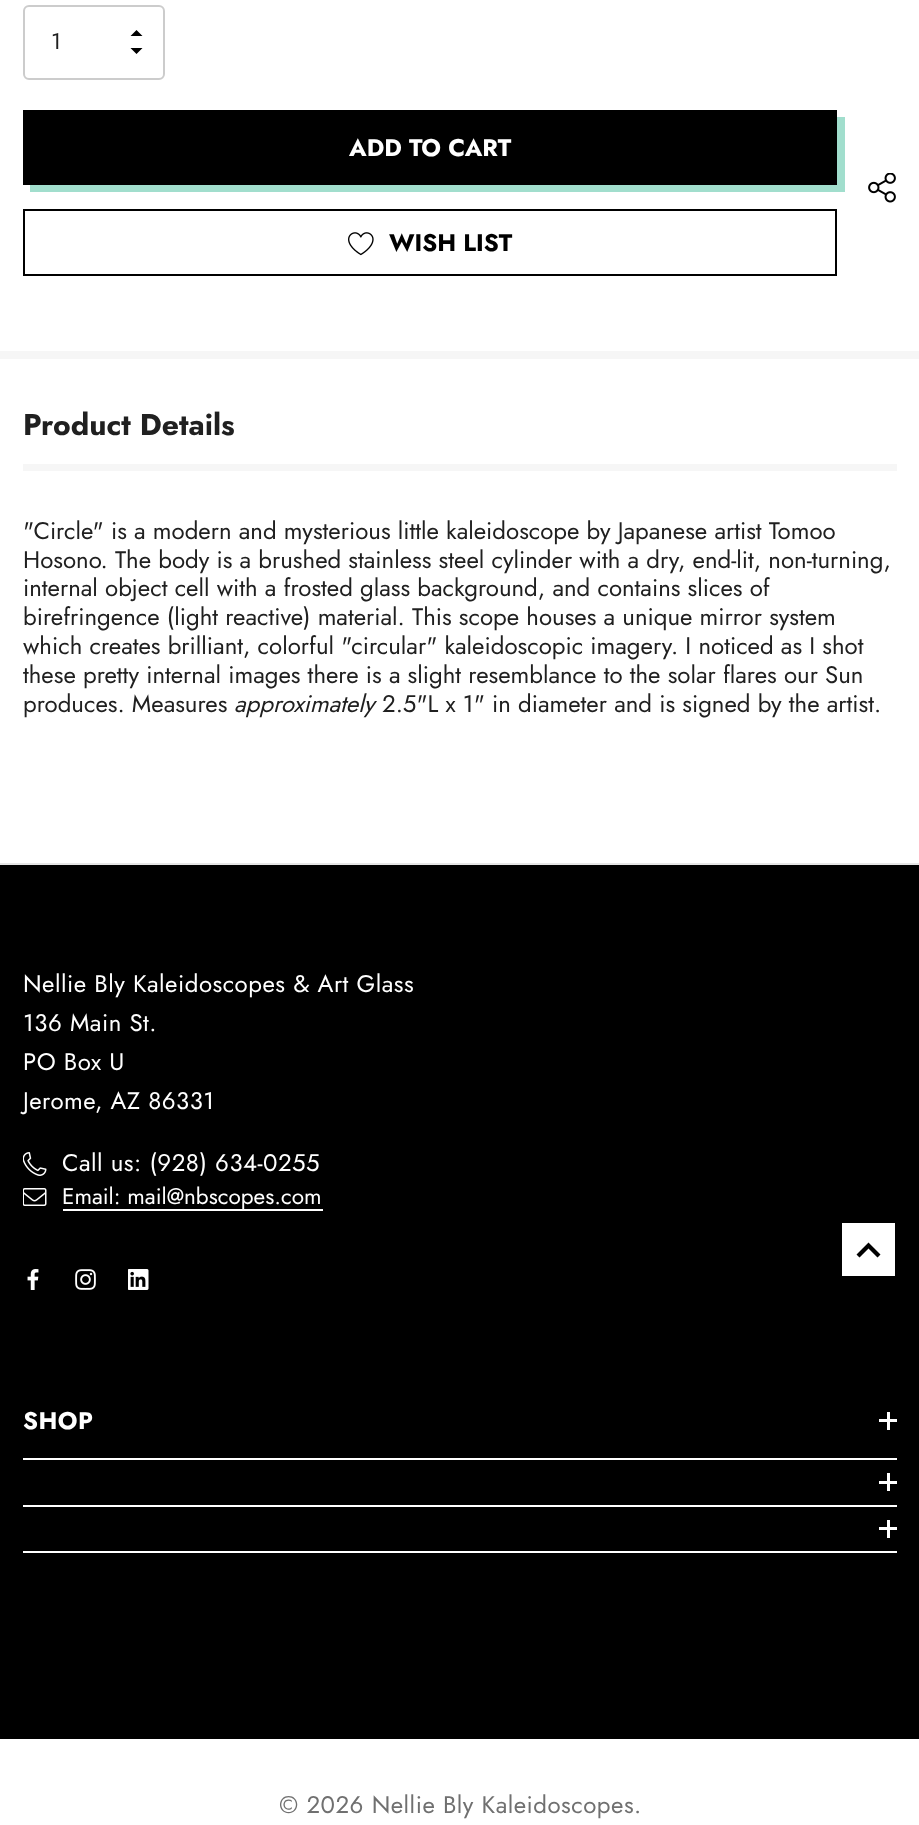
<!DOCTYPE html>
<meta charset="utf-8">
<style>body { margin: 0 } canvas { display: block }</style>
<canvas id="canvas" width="919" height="1825"></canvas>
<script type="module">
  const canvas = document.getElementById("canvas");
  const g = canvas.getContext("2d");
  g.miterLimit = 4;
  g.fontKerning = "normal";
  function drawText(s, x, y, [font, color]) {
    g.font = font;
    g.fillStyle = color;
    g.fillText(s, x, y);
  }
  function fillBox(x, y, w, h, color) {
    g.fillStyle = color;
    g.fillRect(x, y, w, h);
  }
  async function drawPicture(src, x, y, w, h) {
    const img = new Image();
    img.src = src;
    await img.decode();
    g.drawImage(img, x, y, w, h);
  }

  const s1 = ["22.5px Jost", "#202020"];
  const s2 = ["bold 24px Jost", "#FFFFFF"];
  const s3 = ["bold 24px Jost", "#000000"];
  const s4 = ["bold 30px Jost", "#202020"];
  const s5 = ["24px Jost", "#202020"];
  const s6 = ["italic 24px Jost", "#202020"];
  const s7 = ["24px Jost", "#FFFFFF"];
  const s8 = ["22.5px Jost", "#FFFFFF"];
  const s9 = ["24px Jost", "#707070"];

  fillBox(0, 0, 919, 1825, "#FFFFFF");
  g.beginPath();
  g.roundRect(24, 6, 140, 73, 5);
  g.strokeStyle = "#CCCCCC";
  g.lineWidth = 2;
  g.stroke();
  drawText("1", 51, 49, s1);
  g.fillStyle = "#000000";
  g.beginPath();
  g.moveTo(130.5, 48);
  g.lineTo(142.5, 48);
  g.lineTo(136.5, 54);
  g.closePath();
  g.moveTo(142.5, 36);
  g.lineTo(130.5, 36);
  g.lineTo(136.5, 30);
  g.closePath();
  g.fill();
  g.fillStyle = "#A1DECD";
  g.beginPath();
  g.moveTo(30, 184);
  g.lineTo(30, 192);
  g.lineTo(845, 192);
  g.lineTo(845, 117);
  g.lineTo(837, 117);
  g.lineTo(837, 184);
  g.closePath();
  g.fill();
  fillBox(23, 110, 814, 75, "#000000");
  drawText("ADD TO CART", 349, 156, s2);
  await drawPicture("pic1.png", 868, 173, 28, 30);
  g.strokeStyle = "#000000";
  g.strokeRect(24, 210, 812, 65);
  await drawPicture("pic2.png", 348, 232, 26, 24);
  drawText("WISH LIST", 389, 251, s3);
  fillBox(0, 351, 919, 8, "#F6F6F6");
  drawText("Product Details", 23, 435, s4);
  fillBox(23, 464, 874, 7, "#F6F6F6");
  drawText("\"Circle\" is a modern and mysterious little kaleidoscope by Japanese artist Tomoo", 23, 539, s5);
  drawText("Hosono. The body is a brushed stainless steel cylinder with a dry, end-lit, non-turning,", 23, 568, s5);
  drawText("internal object cell with a frosted glass background, and contains slices of", 23, 596, s5);
  drawText("birefringence (light reactive) material. This scope houses a unique mirror system", 23, 625, s5);
  drawText("which creates brilliant, colorful \"circular\" kaleidoscopic imagery. I noticed as I shot", 23, 654, s5);
  drawText("these pretty internal images there is a slight resemblance to the solar flares our Sun", 23, 683, s5);
  drawText("produces. Measures", 23, 712, s5);
  drawText("approximately", 234, 712, s6);
  drawText("2.5\"L x 1\" in diameter and is signed by the artist.", 382, 712, s5);
  fillBox(0, 865, 919, 874, "#000000");
  fillBox(0, 863, 919, 2, "#E6E6E6");
  g.letterSpacing = "0.5px";
  drawText("Nellie Bly Kaleidoscopes & Art Glass", 23, 992, s7);
  drawText("136 Main St.", 23, 1031, s7);
  drawText("PO Box U", 23, 1070, s7);
  drawText("Jerome, AZ 86331", 23, 1109, s7);
  await drawPicture("pic3.png", 23, 1152, 24, 24);
  drawText("Call us: (928) 634-0255", 62, 1171, s7);
  await drawPicture("pic4.png", 23, 1188, 24, 18);
  g.letterSpacing = "0px";
  drawText("Email: mail@nbscopes.com", 62, 1204, s8);
  fillBox(63, 1209, 260, 2, "#FFFFFF");
  await drawPicture("pic5.png", 27, 1269, 12, 21);
  await drawPicture("pic6.png", 75, 1269, 21, 21);
  await drawPicture("pic7.png", 128, 1269, 21, 21);
  fillBox(23, 1458, 874, 2, "#FFFFFF");
  g.letterSpacing = "0.5px";
  drawText("SHOP", 23, 1429, s2);
  fillBox(887, 1412, 3, 18, "#FFFFFF");
  fillBox(879, 1419, 18, 3, "#FFFFFF");
  fillBox(23, 1505, 874, 2, "#FFFFFF");
  fillBox(887, 1473, 3, 18, "#FFFFFF");
  fillBox(879, 1481, 18, 3, "#FFFFFF");
  fillBox(23, 1551, 874, 2, "#FFFFFF");
  fillBox(887, 1520, 3, 18, "#FFFFFF");
  fillBox(879, 1527, 18, 3, "#FFFFFF");
  drawText("© 2026 Nellie Bly Kaleidoscopes.", 279, 1813, s9);
  fillBox(842, 1223, 53, 53, "#FFFFFF");
  g.fillStyle = "#000000";
  g.beginPath();
  g.moveTo(877.5, 1257.5);
  g.lineTo(868.5, 1248.5);
  g.lineTo(859.5, 1257.5);
  g.lineTo(856.5, 1254.5);
  g.lineTo(868.5, 1242.5);
  g.lineTo(880.5, 1254.5);
  g.closePath();
  g.fill();
</script>
